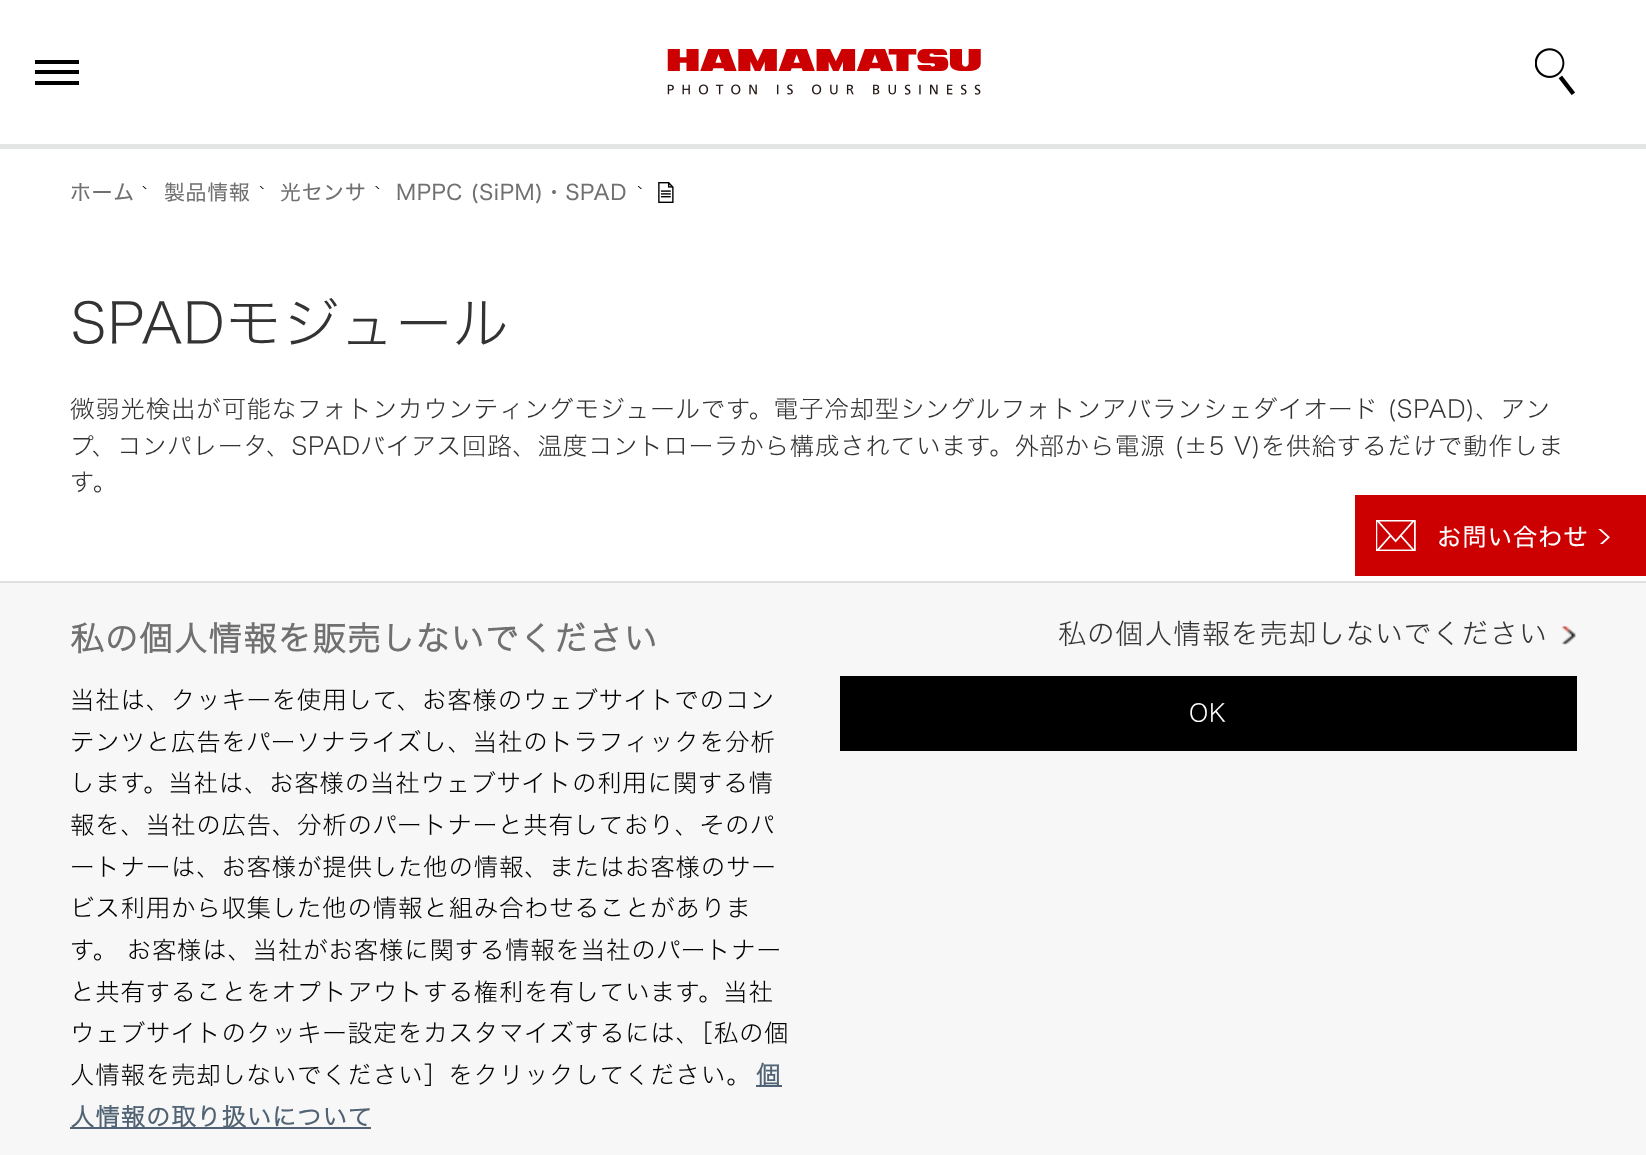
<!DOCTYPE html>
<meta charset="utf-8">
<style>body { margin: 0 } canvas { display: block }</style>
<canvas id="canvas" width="1646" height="1155"></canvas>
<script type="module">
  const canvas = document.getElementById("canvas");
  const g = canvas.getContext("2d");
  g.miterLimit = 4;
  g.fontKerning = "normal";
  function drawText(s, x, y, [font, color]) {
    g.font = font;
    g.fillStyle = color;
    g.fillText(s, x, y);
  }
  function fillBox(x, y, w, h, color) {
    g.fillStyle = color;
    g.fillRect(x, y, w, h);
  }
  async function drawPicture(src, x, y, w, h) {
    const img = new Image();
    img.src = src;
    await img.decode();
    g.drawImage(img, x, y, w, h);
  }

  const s1 = ["21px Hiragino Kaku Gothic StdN", "#707070"];
  const s2 = ["200 56px Hiragino Kaku Gothic StdN", "#333333"];
  const s3 = ["200 24.5px Hiragino Kaku Gothic StdN", "#333333"];
  const s4 = ["24.5px Hiragino Kaku Gothic StdN", "#FFFFFF"];
  const s5 = ["bold 33.6px Hiragino Kaku Gothic StdN", "#707070"];
  const s6 = ["200 24.5px Hiragino Kaku Gothic StdN", "#000000"];
  const s7 = ["bold 24.5px Hiragino Kaku Gothic StdN", "#506273"];
  const s8 = ["200 28px Hiragino Kaku Gothic StdN", "#333333"];
  const s9 = ["200 24.5px Hiragino Kaku Gothic StdN", "#FFFFFF"];

  fillBox(0, 0, 1646, 1155, "#FFFFFF");
  fillBox(0, 144, 1646, 5, "#E3E5E5");
  fillBox(35, 70, 44, 4, "#000000");
  fillBox(35, 60, 44, 4, "#000000");
  fillBox(35, 81, 44, 4, "#000000");
  await drawPicture("pic1.png", 667, 49, 314, 46);
  await drawPicture("pic2.png", 1535, 48, 40, 47);
  g.letterSpacing = "0.6px";
  drawText("ホーム", 70, 200, s1);
  await drawPicture("pic3.png", 142, 186, 5, 3);
  drawText("製品情報", 164, 200, s1);
  await drawPicture("pic4.png", 259, 186, 5, 3);
  drawText("光センサ", 280, 200, s1);
  await drawPicture("pic5.png", 375, 186, 5, 3);
  drawText("MPPC (SiPM)・SPAD", 396, 200, s1);
  await drawPicture("pic6.png", 637, 186, 5, 3);
  await drawPicture("pic7.png", 658, 182, 16, 21);
  g.letterSpacing = "0.73px";
  drawText("SPADモジュール", 70, 344, s2);
  drawText("微弱光検出が可能なフォトンカウンティングモジュールです。電子冷却型シングルフォトンアバランシェダイオード (SPAD)、アン", 70, 418, s3);
  drawText("プ、コンパレータ、SPADバイアス回路、温度コントローラから構成されています。外部から電源 (±5 V)を供給するだけで動作しま", 70, 455, s3);
  drawText("す。", 70, 491, s3);
  fillBox(1355, 495, 291, 81, "#CC0000");
  await drawPicture("pic8.png", 1376, 520, 40, 31);
  drawText("お問い合わせ", 1437, 546, s4);
  await drawPicture("pic9.png", 1598, 529, 12, 15);
  fillBox(0, 583, 1646, 572, "#F7F7F7");
  fillBox(0, 581, 1646, 2, "#E0E0E0");
  g.letterSpacing = "1px";
  drawText("私の個人情報を販売しないでください", 70, 651, s5);
  g.letterSpacing = "0.73px";
  drawText("当社は、クッキーを使用して、お客様のウェブサイトでのコン", 70, 709, s6);
  drawText("テンツと広告をパーソナライズし、当社のトラフィックを分析", 70, 751, s6);
  drawText("します。当社は、お客様の当社ウェブサイトの利用に関する情", 70, 792, s6);
  drawText("報を、当社の広告、分析のパートナーと共有しており、そのパ", 70, 834, s6);
  drawText("ートナーは、お客様が提供した他の情報、またはお客様のサー", 70, 876, s6);
  drawText("ビス利用から収集した他の情報と組み合わせることがありま", 70, 917, s6);
  drawText("す。 お客様は、当社がお客様に関する情報を当社のパートナー", 70, 959, s6);
  drawText("と共有することをオプトアウトする権利を有しています。当社", 70, 1001, s6);
  drawText("ウェブサイトのクッキー設定をカスタマイズするには、［私の個", 70, 1042, s6);
  drawText("人情報を売却しないでください］をクリックしてください。", 70, 1084, s6);
  fillBox(756, 1085, 26, 2, "#506273");
  drawText("個", 756, 1084, s7);
  fillBox(70, 1127, 301, 2, "#506273");
  drawText("人情報の取り扱いについて", 70, 1126, s7);
  g.letterSpacing = "0.8px";
  drawText("私の個人情報を売却しないでください", 1058, 644, s8);
  await drawPicture("pic10.png", 1562, 626, 14, 19);
  fillBox(840, 676, 737, 75, "#000000");
  g.letterSpacing = "0.73px";
  drawText("OK", 1189, 722, s9);
</script>
